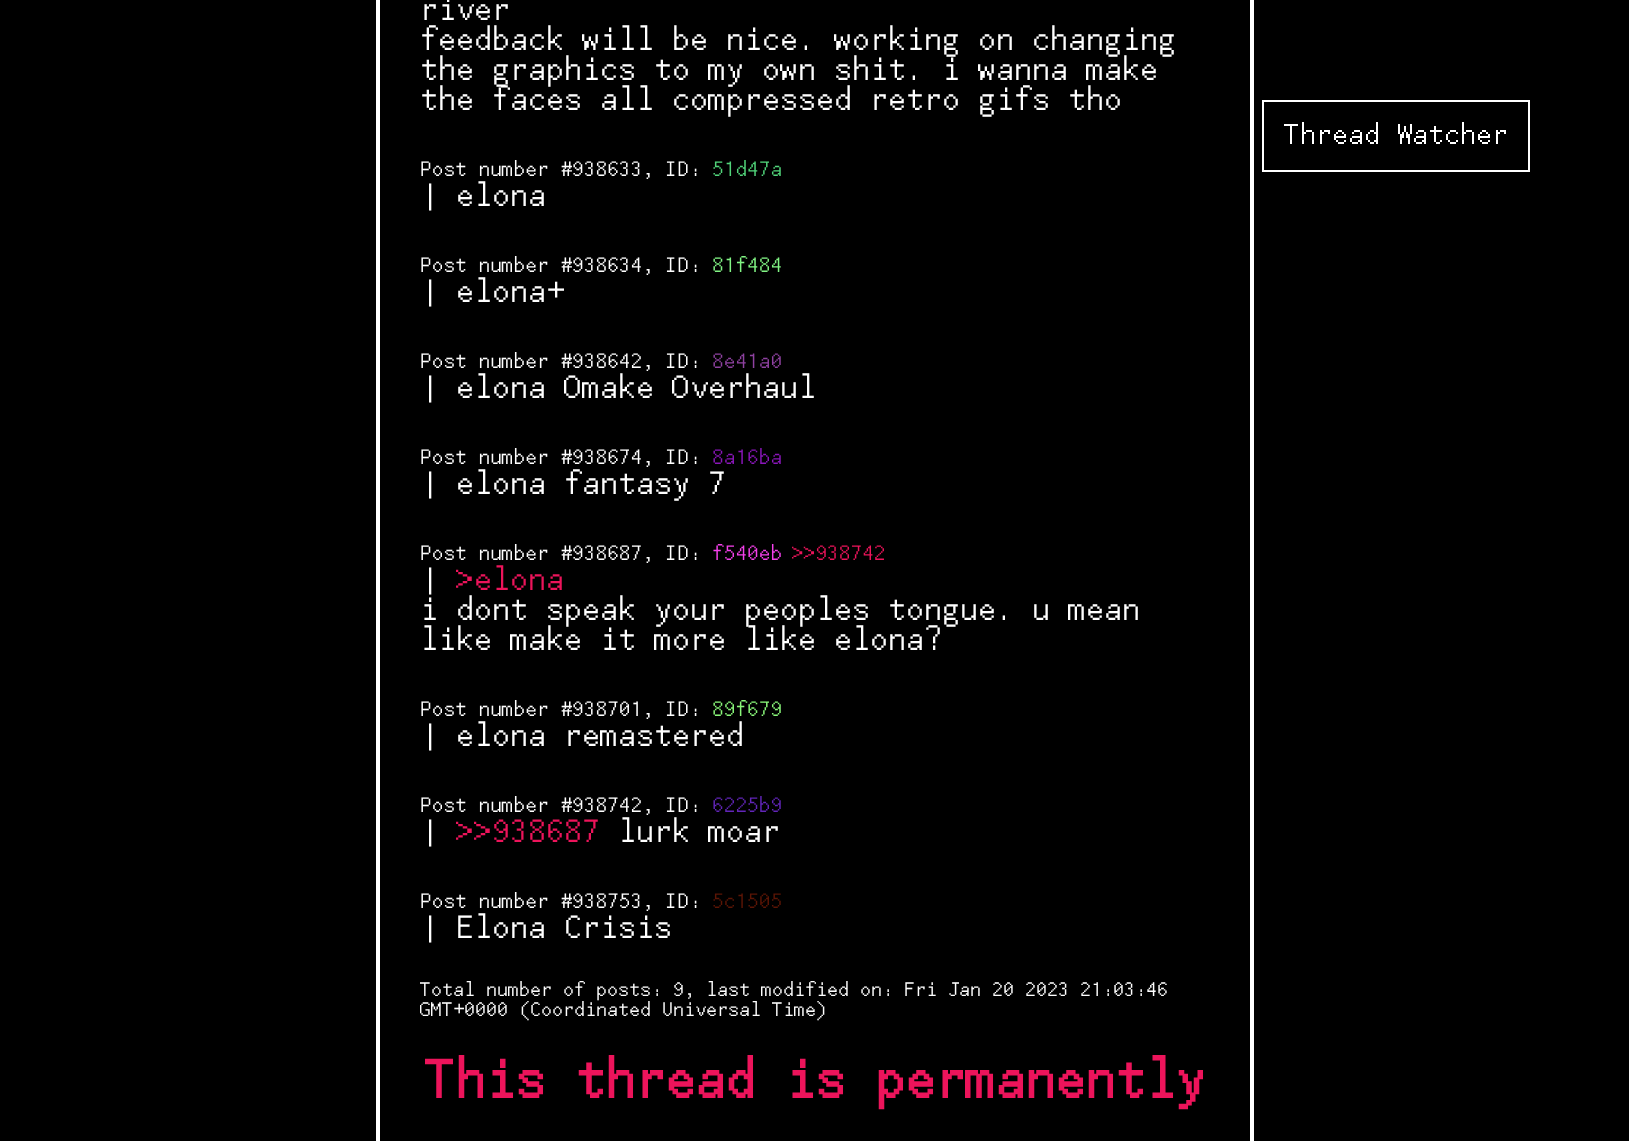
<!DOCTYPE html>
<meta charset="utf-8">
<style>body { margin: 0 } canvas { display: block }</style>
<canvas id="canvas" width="1629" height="1141"></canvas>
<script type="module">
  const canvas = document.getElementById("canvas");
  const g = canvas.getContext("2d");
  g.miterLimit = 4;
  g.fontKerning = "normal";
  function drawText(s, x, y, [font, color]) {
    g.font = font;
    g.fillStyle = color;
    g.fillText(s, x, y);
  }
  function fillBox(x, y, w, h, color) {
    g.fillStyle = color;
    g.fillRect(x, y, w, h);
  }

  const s1 = ["500 36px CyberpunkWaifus", "#FFFFFF"];
  const s2 = ["500 23.4px CyberpunkWaifus", "#FFFFFF"];
  const s3 = ["500 23.4px CyberpunkWaifus", "#51D47A"];
  const s4 = ["500 23.4px CyberpunkWaifus", "#81F484"];
  const s5 = ["500 23.4px CyberpunkWaifus", "#8E41A0"];
  const s6 = ["500 23.4px CyberpunkWaifus", "#8A16BA"];
  const s7 = ["500 23.4px CyberpunkWaifus", "#F540EB"];
  const s8 = ["500 23.4px CyberpunkWaifus", "#ED145B"];
  const s9 = ["500 36px CyberpunkWaifus", "#ED145B"];
  const s10 = ["500 23.4px CyberpunkWaifus", "#89F679"];
  const s11 = ["500 23.4px CyberpunkWaifus", "#6225B9"];
  const s12 = ["500 23.4px CyberpunkWaifus", "#5C1505"];
  const s13 = ["500 22px CyberpunkWaifus", "#FFFFFF"];
  const s14 = ["bold 60px CyberpunkWaifus", "#ED145B"];
  const s15 = ["500 32px CyberpunkWaifus", "#FFFFFF"];

  fillBox(0, 0, 1629, 1141, "#000000");
  g.strokeStyle = "#FFFFFF";
  g.lineWidth = 4;
  g.strokeRect(378, -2, 874, 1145);
  drawText("river", 420, 20, s1);
  drawText("feedback will be nice. working on changing", 420, 50, s1);
  drawText("the graphics to my own shit. i wanna make", 420, 80, s1);
  drawText("the faces all compressed retro gifs tho", 420, 110, s1);
  drawText("Post number #938633, ID:", 420, 176, s2);
  drawText("51d47a", 712, 176, s3);
  drawText("| elona", 420, 206, s1);
  drawText("Post number #938634, ID:", 420, 272, s2);
  drawText("81f484", 712, 272, s4);
  drawText("| elona+", 420, 302, s1);
  drawText("Post number #938642, ID:", 420, 368, s2);
  drawText("8e41a0", 712, 368, s5);
  drawText("| elona Omake Overhaul", 420, 398, s1);
  drawText("Post number #938674, ID:", 420, 464, s2);
  drawText("8a16ba", 712, 464, s6);
  drawText("| elona fantasy 7", 420, 494, s1);
  drawText("Post number #938687, ID:", 420, 560, s2);
  drawText("f540eb", 712, 560, s7);
  drawText(">>938742", 792, 560, s8);
  drawText("|", 420, 590, s1);
  drawText(">elona", 456, 590, s9);
  drawText("i dont speak your peoples tongue. u mean", 420, 620, s1);
  drawText("like make it more like elona?", 420, 650, s1);
  drawText("Post number #938701, ID:", 420, 716, s2);
  drawText("89f679", 712, 716, s10);
  drawText("| elona remastered", 420, 746, s1);
  drawText("Post number #938742, ID:", 420, 812, s2);
  drawText("6225b9", 712, 812, s11);
  drawText("|", 420, 842, s1);
  drawText(">>938687", 456, 842, s9);
  drawText("lurk moar", 618, 842, s1);
  drawText("Post number #938753, ID:", 420, 908, s2);
  drawText("5c1505", 712, 908, s12);
  drawText("| Elona Crisis", 420, 938, s1);
  drawText("Total number of posts: 9, last modified on: Fri Jan 20 2023 21:03:46", 420, 996, s13);
  drawText("GMT+0000 (Coordinated Universal Time)", 420, 1016, s13);
  drawText("This thread is permanently", 425, 1098, s14);
  g.lineWidth = 2;
  g.strokeRect(1263, 101, 266, 70);
  drawText("Thread Watcher", 1284, 144, s15);
</script>
